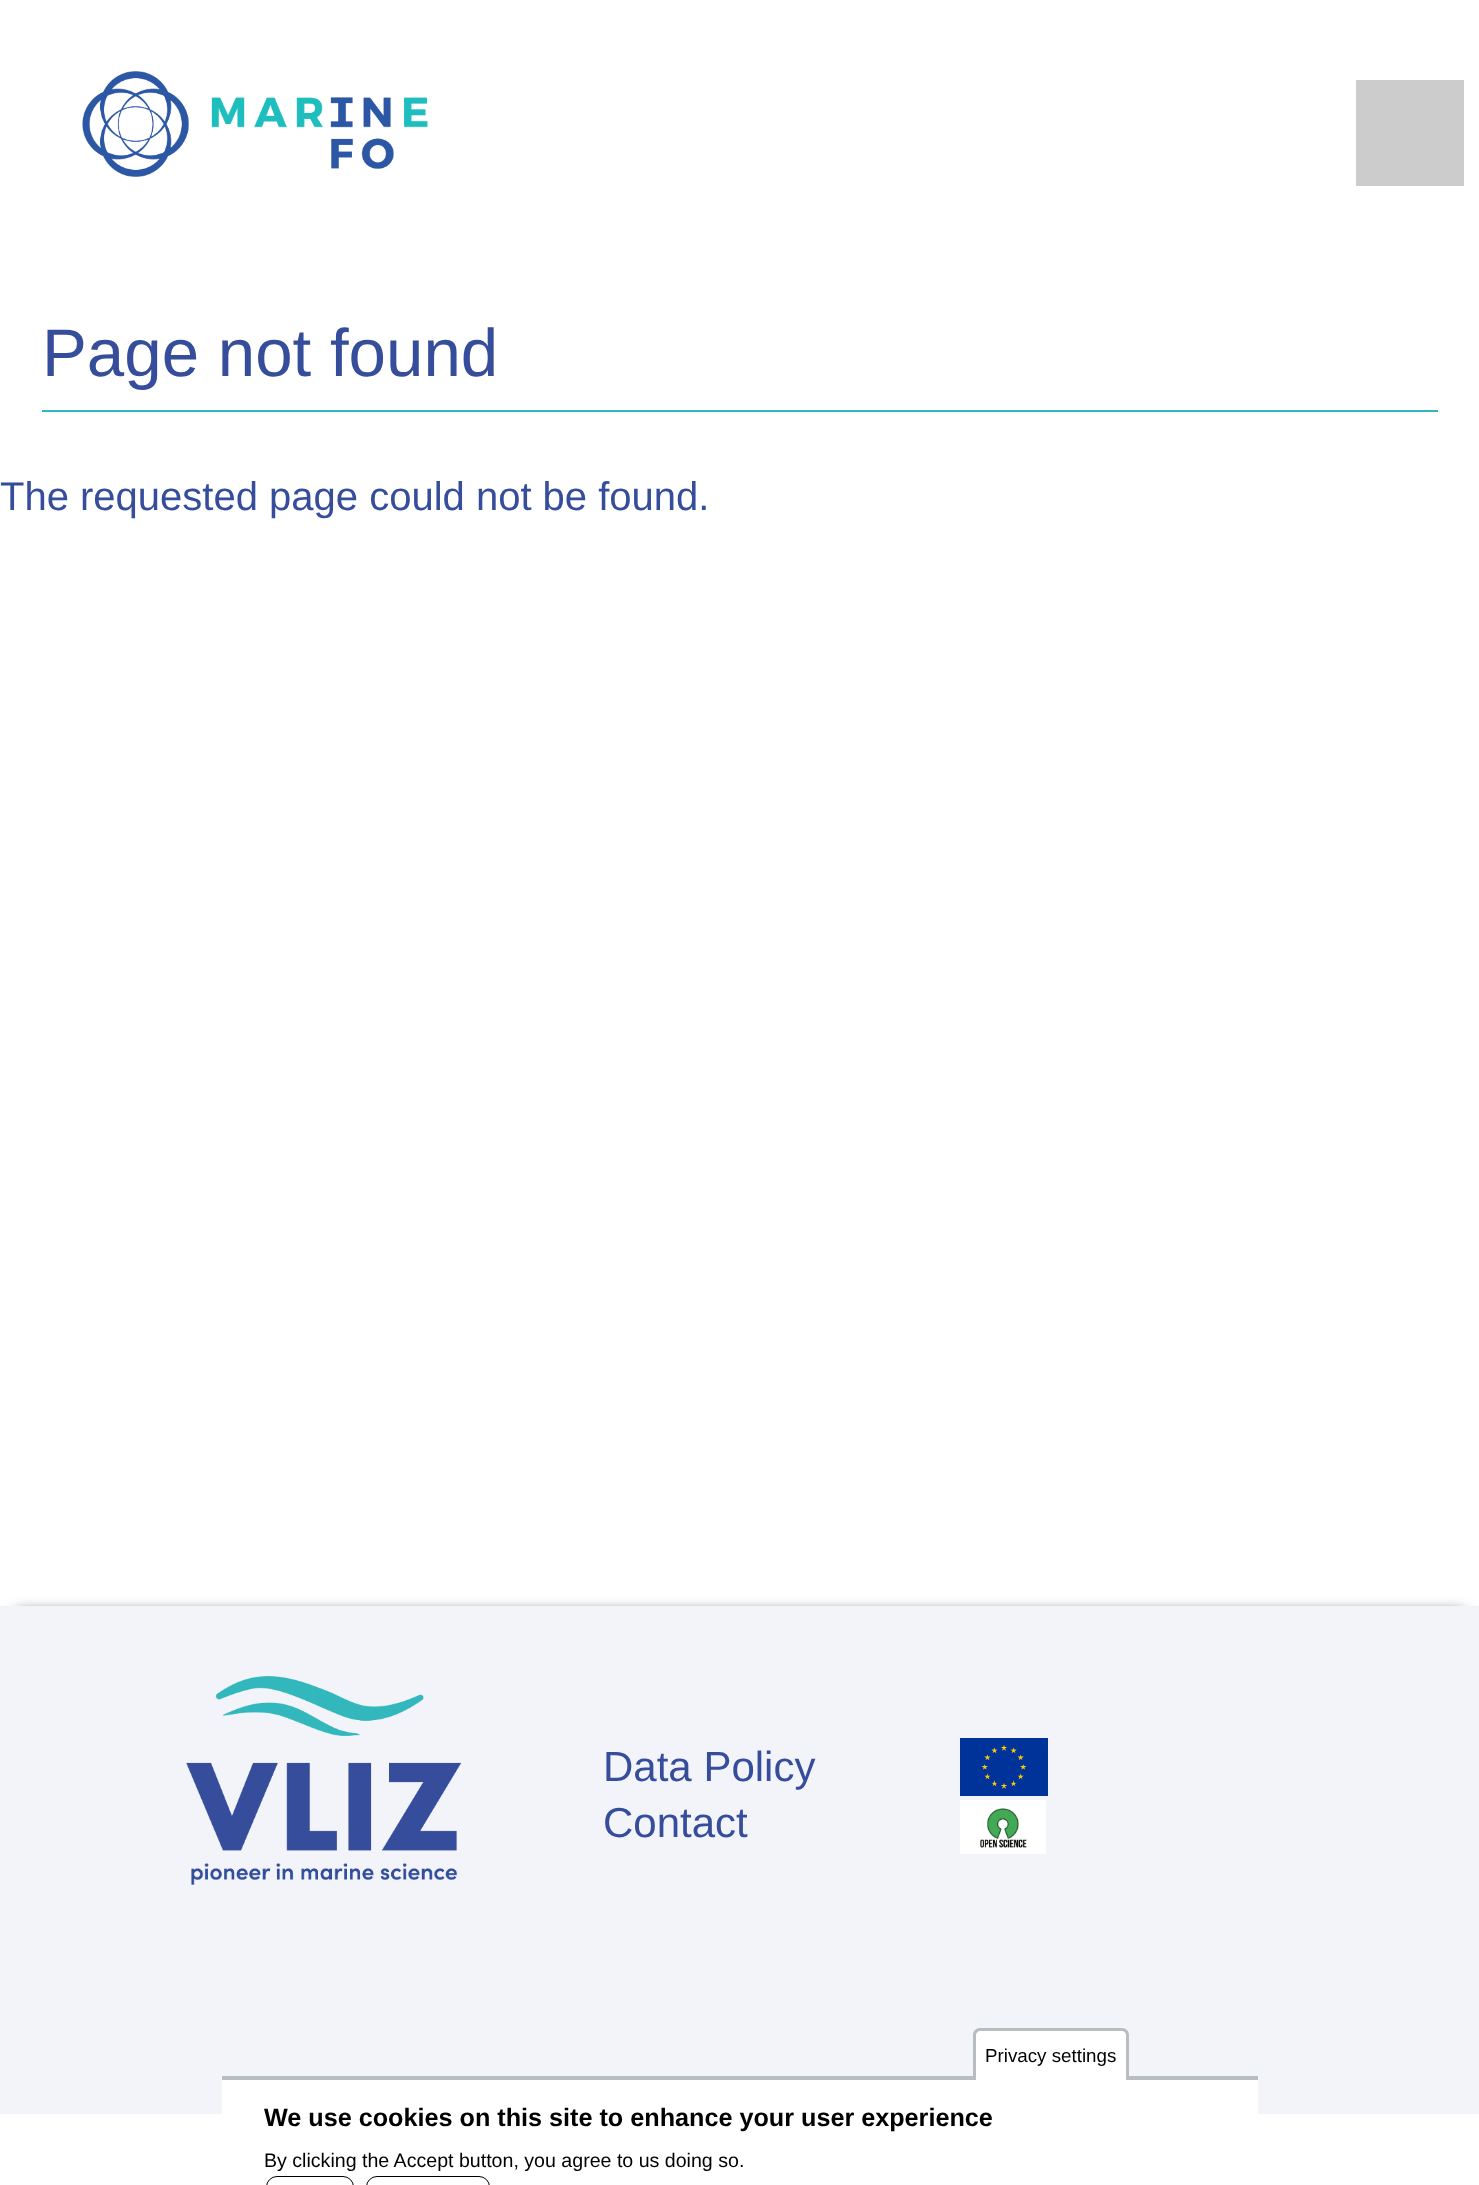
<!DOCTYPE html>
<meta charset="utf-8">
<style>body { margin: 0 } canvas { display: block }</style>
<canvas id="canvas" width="1479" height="2185"></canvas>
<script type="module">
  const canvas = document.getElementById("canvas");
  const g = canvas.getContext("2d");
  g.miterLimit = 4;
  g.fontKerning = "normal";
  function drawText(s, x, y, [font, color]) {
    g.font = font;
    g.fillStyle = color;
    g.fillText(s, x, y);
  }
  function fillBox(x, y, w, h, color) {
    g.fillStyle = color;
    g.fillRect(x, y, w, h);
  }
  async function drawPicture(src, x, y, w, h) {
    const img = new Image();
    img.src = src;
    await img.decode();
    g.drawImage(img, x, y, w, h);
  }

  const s1 = ["67.25px Liberation Sans", "#354D9B"];
  const s2 = ["40px Liberation Sans", "#354D9B"];
  const s3 = ["42px Liberation Sans", "#354D9B"];
  const s4 = ["18.75px Liberation Sans", "#000000"];
  const s5 = ["bold 25.2px Liberation Sans", "#000000"];
  const s6 = ["19.6px Liberation Sans", "#000000"];

  fillBox(0, 0, 1479, 2185, "#FFFFFF");
  await drawPicture("pic1.png", 82, 71, 346, 106);
  fillBox(1356, 80, 108, 106, "#CCCCCC");
  fillBox(42, 410, 1396, 2, "#31B7BC");
  drawText("Page not found", 42, 376, s1);
  drawText("The requested page could not be found.", 0, 510, s2);
  g.fillStyle = "rgba(0, 0, 0, 0.75)";
  g.filter = "blur(7px)";
  g.beginPath();
  g.rect(16, 1612, 1448, 476);
  g.fill();
  g.filter = "none";
  fillBox(0, 1606, 1479, 508, "#F3F4FA");
  await drawPicture("pic2.png", 186, 1676, 276, 209);
  drawText("Data Policy", 603, 1781, s3);
  drawText("Contact", 603, 1837, s3);
  await drawPicture("pic3.png", 960, 1738, 88, 58);
  await drawPicture("pic4.png", 960, 1800, 86, 54);
  fillBox(222, 2080, 1036, 34, "#FFFFFF");
  fillBox(222, 2076, 1036, 4, "#B8BDC0");
  g.fillStyle = "#FFFFFF";
  g.beginPath();
  g.roundRect(976, 2030, 150, 50, [4, 4, 0, 0]);
  g.fill();
  g.fillStyle = "#B8BDC0";
  g.beginPath();
  g.moveTo(980, 2028);
  g.lineTo(1122, 2028);
  g.bezierCurveTo(1126, 2028, 1129, 2031, 1129, 2035);
  g.lineTo(1129, 2080);
  g.lineTo(973, 2080);
  g.lineTo(973, 2035);
  g.bezierCurveTo(973, 2031, 976, 2028, 980, 2028);
  g.closePath();
  g.moveTo(980, 2031);
  g.lineTo(1122, 2031);
  g.bezierCurveTo(1124, 2031, 1126, 2033, 1126, 2035);
  g.lineTo(1126, 2080);
  g.lineTo(976, 2080);
  g.lineTo(976, 2035);
  g.bezierCurveTo(976, 2033, 978, 2031, 980, 2031);
  g.closePath();
  g.fill("evenodd");
  drawText("Privacy settings", 985, 2062, s4);
  drawText("We use cookies on this site to enhance your user experience", 264, 2126, s5);
  drawText("By clicking the Accept button, you agree to us doing so.", 264, 2167, s6);
  g.beginPath();
  g.roundRect(266.5, 2176.5, 87, 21, 11.5);
  g.strokeStyle = "#000000";
  g.stroke();
  g.beginPath();
  g.roundRect(366.5, 2176.5, 123, 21, 11.5);
  g.stroke();
</script>
